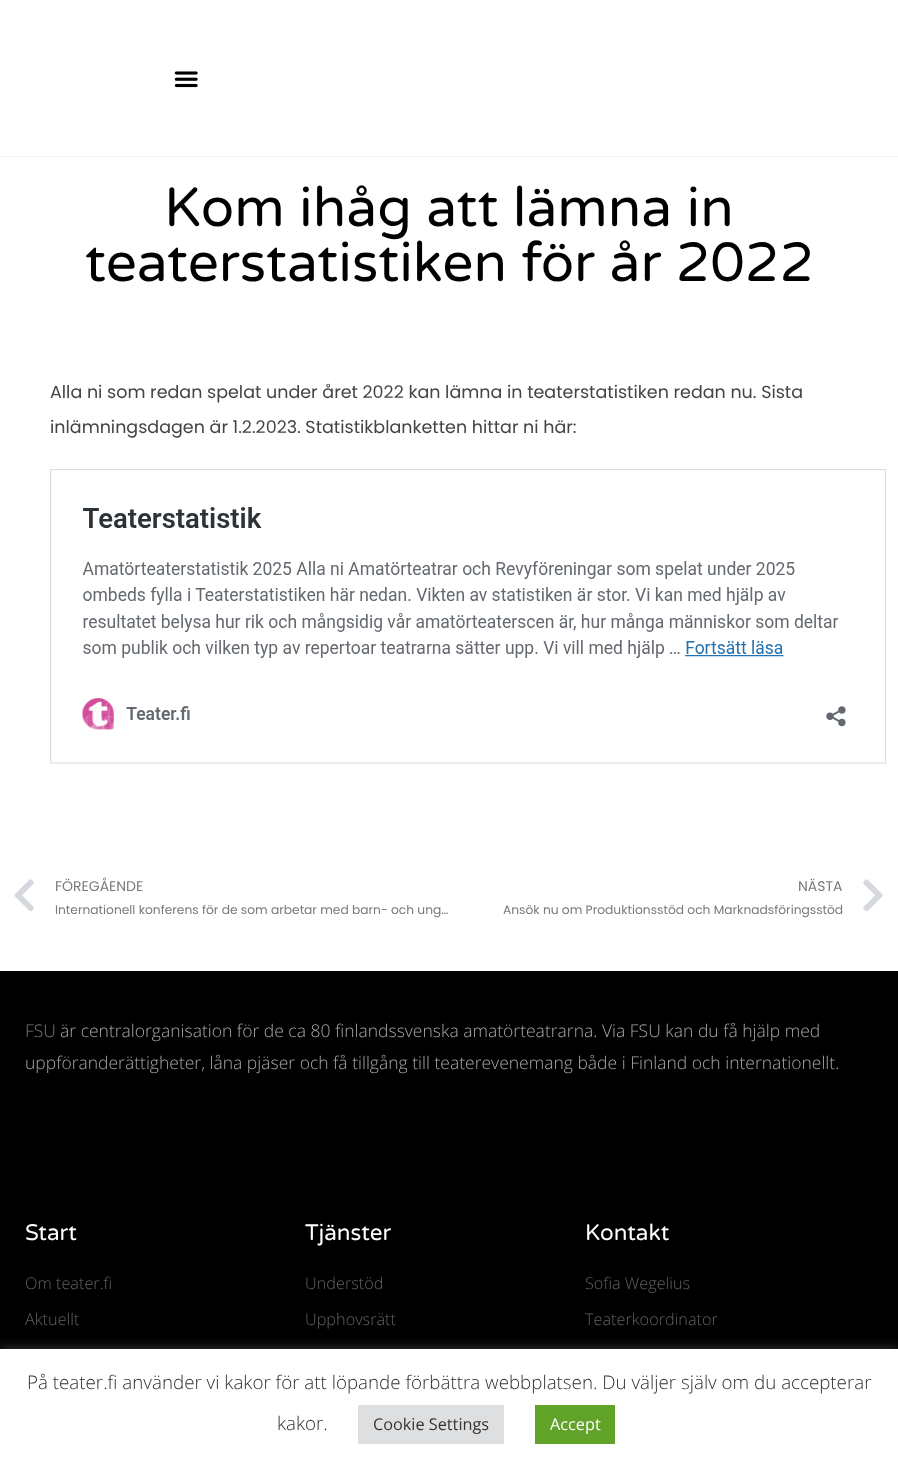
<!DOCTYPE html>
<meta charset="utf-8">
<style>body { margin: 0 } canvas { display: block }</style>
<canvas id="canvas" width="898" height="1465"></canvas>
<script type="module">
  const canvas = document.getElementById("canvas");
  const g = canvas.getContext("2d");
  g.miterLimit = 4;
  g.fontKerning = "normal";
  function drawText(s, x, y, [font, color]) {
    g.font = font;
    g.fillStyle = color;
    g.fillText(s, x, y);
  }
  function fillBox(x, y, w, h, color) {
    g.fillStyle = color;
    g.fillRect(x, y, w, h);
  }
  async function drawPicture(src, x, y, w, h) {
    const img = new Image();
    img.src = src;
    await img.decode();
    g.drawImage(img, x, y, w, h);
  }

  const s1 = ["55px Varela Round", "#000000"];
  const s2 = ["17.5px Poppins", "#444444"];
  const s3 = ["14px Poppins", "#7A7A7A"];
  const s4 = ["12.25px Poppins", "#7A7A7A"];
  const s5 = ["300 17.5px Open Sans", "#7A7A7A"];
  const s6 = ["300 17.5px Open Sans", "#A6A6A6"];
  const s7 = ["22.5px Varela Round", "#FFFFFF"];
  const s8 = ["300 16.25px Open Sans", "#616161"];
  const s9 = ["300 18.75px Open Sans", "#333333"];
  const s10 = ["16.25px Open Sans", "#333333"];
  const s11 = ["16.25px Open Sans", "#FFFFFF"];

  fillBox(0, 0, 898, 1465, "#FFFFFF");
  fillBox(0, 156, 898, 1, "#F1F1F1");
  await drawPicture("pic1.png", 174, 71, 24, 17);
  drawText("Kom ihåg att lämna in", 164, 226, s1);
  drawText("teaterstatistiken för år 2022", 85, 281, s1);
  drawText("Alla ni som redan spelat under året 2022 kan lämna in teaterstatistiken redan nu. Sista", 50, 398, s2);
  drawText("inlämningsdagen är 1.2.2023. Statistikblanketten hittar ni här:", 50, 433, s2);
  await drawPicture("pic2.png", 50, 469, 836, 295);
  await drawPicture("pic3.png", 14, 879, 20, 33);
  drawText("FÖREGÅENDE", 55, 891, s3);
  drawText("Internationell konferens för de som arbetar med barn- och ung…", 55, 914, s4);
  drawText("NÄSTA", 798, 891, s3);
  drawText("Ansök nu om Produktionsstöd och Marknadsföringsstöd", 503, 914, s4);
  await drawPicture("pic4.png", 863, 879, 20, 33);
  fillBox(0, 971, 898, 378, "#000000");
  drawText("FSU", 25, 1037, s5);
  drawText("är centralorganisation för de ca 80 finlandssvenska amatörteatrarna. Via FSU kan du få hjälp med", 60, 1037, s6);
  drawText("uppföranderättigheter, låna pjäser och få tillgång till teaterevenemang både i Finland och internationellt.", 25, 1069, s6);
  drawText("Start", 25, 1240, s7);
  drawText("Om teater.fi", 25, 1289, s8);
  drawText("Aktuellt", 25, 1325, s8);
  drawText("Tjänster", 305, 1240, s7);
  drawText("Understöd", 305, 1289, s8);
  drawText("Upphovsrätt", 305, 1325, s8);
  drawText("Kontakt", 585, 1240, s7);
  drawText("Sofia Wegelius", 585, 1289, s8);
  drawText("Teaterkoordinator", 585, 1325, s8);
  g.fillStyle = "rgba(172, 171, 171, 0.3)";
  g.filter = "blur(6px)";
  g.beginPath();
  g.rect(0, 1348, 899, 116);
  g.fill();
  g.filter = "none";
  fillBox(0, 1349, 898, 116, "#FFFFFF");
  drawText("På teater.fi använder vi kakor för att löpande förbättra webbplatsen. Du väljer själv om du accepterar", 27, 1389, s9);
  drawText("kakor.", 277, 1430, s9);
  fillBox(358, 1405, 146, 39, "#DEDFE0");
  drawText("Cookie Settings", 373, 1430, s10);
  fillBox(535, 1405, 80, 39, "#61A229");
  drawText("Accept", 550, 1430, s11);
</script>
